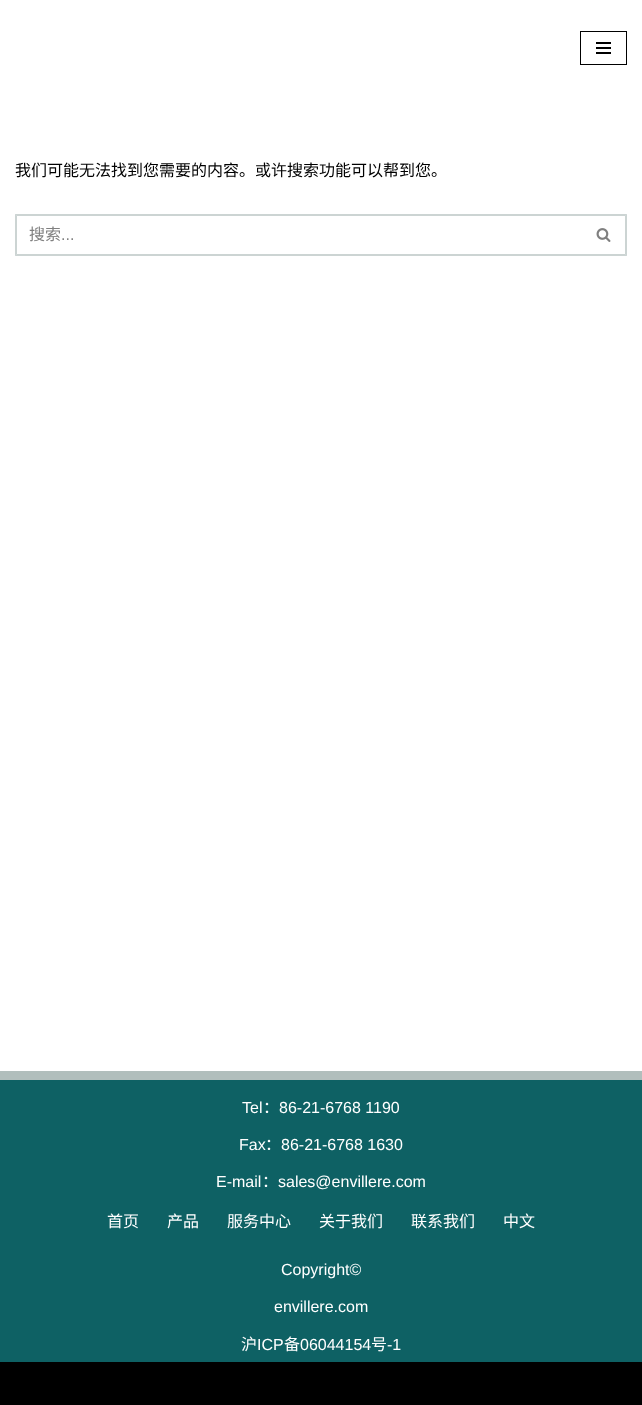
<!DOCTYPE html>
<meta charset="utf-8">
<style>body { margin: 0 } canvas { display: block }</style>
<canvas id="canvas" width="642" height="1405"></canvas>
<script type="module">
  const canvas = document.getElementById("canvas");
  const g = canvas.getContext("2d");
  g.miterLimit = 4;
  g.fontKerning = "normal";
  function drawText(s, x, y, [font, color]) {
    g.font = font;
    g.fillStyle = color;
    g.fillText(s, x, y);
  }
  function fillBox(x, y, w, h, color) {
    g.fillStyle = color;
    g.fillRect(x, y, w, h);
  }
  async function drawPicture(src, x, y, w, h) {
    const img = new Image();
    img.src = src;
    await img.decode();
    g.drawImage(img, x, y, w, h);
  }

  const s1 = ["16px Noto Sans CJK SC", "#000000"];
  const s2 = ["16px Noto Sans CJK SC", "#808080"];
  const s3 = ["16px Liberation Sans", "#808080"];
  const s4 = ["16px Liberation Sans", "#FFFFFF"];
  const s5 = ["16px Noto Sans CJK SC", "#FFFFFF"];

  fillBox(0, 0, 642, 1405, "#FFFFFF");
  g.strokeStyle = "#000000";
  g.strokeRect(580.5, 31.5, 46, 33);
  fillBox(596, 42, 15, 2, "#000000");
  fillBox(596, 47, 15, 2, "#000000");
  fillBox(596, 52, 15, 2, "#000000");
  drawText("我们可能无法找到您需要的内容。或许搜索功能可以帮到您。", 15, 176, s1);
  g.fillStyle = "#CCD4D3";
  g.beginPath();
  g.moveTo(15, 214);
  g.lineTo(582, 214);
  g.lineTo(582, 216);
  g.lineTo(17, 216);
  g.closePath();
  g.fill();
  g.beginPath();
  g.moveTo(582, 256);
  g.lineTo(15, 256);
  g.lineTo(17, 254);
  g.lineTo(582, 254);
  g.closePath();
  g.fill();
  g.fillStyle = "rgba(148, 166, 164, 0.48)";
  g.beginPath();
  g.moveTo(15, 256);
  g.lineTo(15, 214);
  g.lineTo(17, 216);
  g.lineTo(17, 254);
  g.closePath();
  g.fill();
  drawText("搜索", 29, 240, s2);
  drawText("...", 61, 240, s3);
  g.fillStyle = "#CCD4D3";
  g.beginPath();
  g.moveTo(582, 214);
  g.lineTo(627, 214);
  g.lineTo(625, 216);
  g.lineTo(582, 216);
  g.closePath();
  g.fill();
  g.fillStyle = "rgba(148, 166, 164, 0.48)";
  g.beginPath();
  g.moveTo(627, 214);
  g.lineTo(627, 256);
  g.lineTo(625, 254);
  g.lineTo(625, 216);
  g.closePath();
  g.fill();
  g.beginPath();
  g.moveTo(627, 256);
  g.lineTo(582, 256);
  g.lineTo(582, 254);
  g.lineTo(625, 254);
  g.closePath();
  g.fill();
  await drawPicture("pic1.png", 596, 228, 15, 14);
  fillBox(0, 1071, 642, 9, "#B1BEBC");
  fillBox(0, 1080, 642, 282, "#0E6164");
  drawText("Tel", 242, 1113, s4);
  drawText("：", 263, 1113, s5);
  drawText("86-21-6768 1190", 279, 1113, s4);
  drawText("Fax", 239, 1150, s4);
  drawText("：", 265, 1150, s5);
  drawText("86-21-6768 1630", 281, 1150, s4);
  drawText("E-mail", 216, 1187, s4);
  drawText("：", 262, 1187, s5);
  drawText("sales@envillere.com", 278, 1187, s4);
  drawText("首页", 107, 1227, s5);
  drawText("产品", 167, 1227, s5);
  drawText("服务中心", 227, 1227, s5);
  drawText("关于我们", 319, 1227, s5);
  drawText("联系我们", 411, 1227, s5);
  drawText("中文", 503, 1227, s5);
  drawText("Copyright©", 281, 1275, s4);
  drawText("envillere.com", 274, 1312, s4);
  drawText("沪", 241, 1350, s5);
  drawText("ICP", 257, 1350, s4);
  drawText("备", 284, 1350, s5);
  drawText("06044154", 300, 1350, s4);
  drawText("号", 371, 1350, s5);
  drawText("-1", 387, 1350, s4);
  fillBox(0, 1362, 642, 43, "#000000");
</script>
